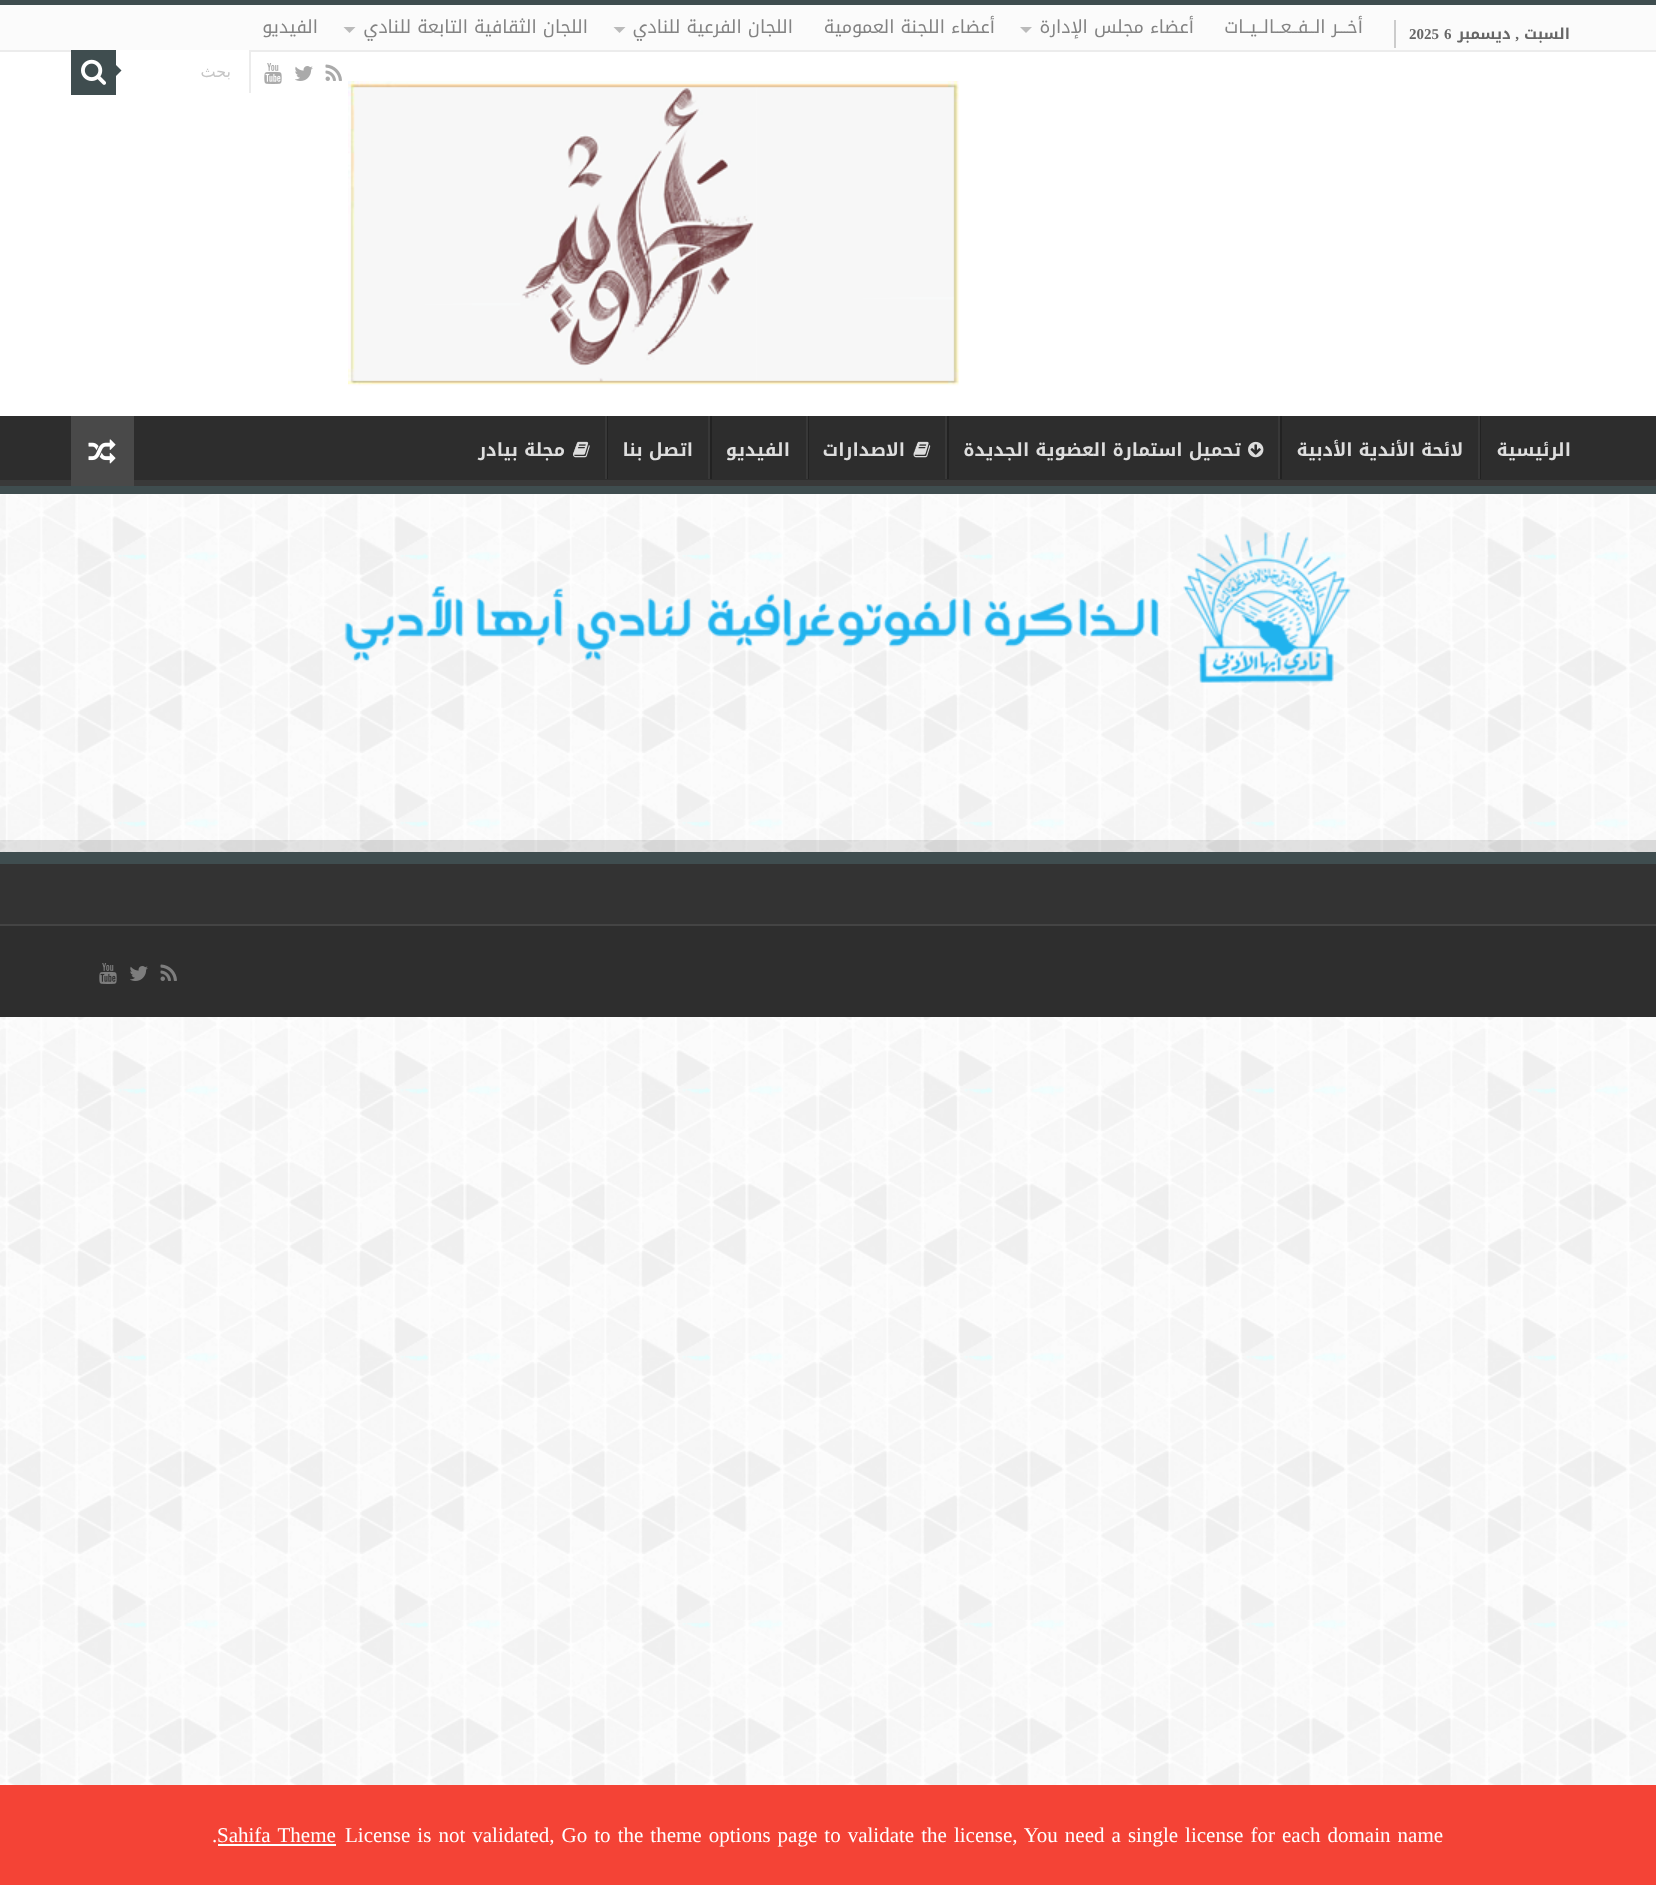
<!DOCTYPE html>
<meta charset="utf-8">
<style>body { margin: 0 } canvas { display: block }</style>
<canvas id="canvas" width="1656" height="1885"></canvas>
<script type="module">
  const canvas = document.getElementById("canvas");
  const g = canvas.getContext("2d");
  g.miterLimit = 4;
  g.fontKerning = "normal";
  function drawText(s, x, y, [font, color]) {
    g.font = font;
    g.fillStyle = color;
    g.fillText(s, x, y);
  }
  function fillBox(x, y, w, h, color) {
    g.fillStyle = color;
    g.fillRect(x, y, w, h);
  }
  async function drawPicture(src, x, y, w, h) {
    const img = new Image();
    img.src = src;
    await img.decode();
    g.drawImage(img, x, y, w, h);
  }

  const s1 = ["bold 15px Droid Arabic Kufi", "#666666"];
  const s2 = ["bold 15px Liberation Serif", "#666666"];
  const s3 = ["18px Droid Arabic Kufi", "#838383"];
  const s4 = ["16px DejaVu Sans", "#C5C5C5"];
  const s5 = ["bold 18px Droid Arabic Kufi", "#DDDDDD"];
  const s6 = ["21px Liberation Serif", "#FFFFFF"];

  fillBox(0, 0, 1656, 1885, "#FFFFFF");
  await drawPicture("pic1.png", 0, 494, 1656, 1291);
  fillBox(0, 0, 1656, 5, "#3F4D4F");
  fillBox(0, 5, 1656, 45, "#FBFBFB");
  fillBox(0, 50, 1656, 2, "#ECECEC");
  fillBox(1394, 20, 2, 28, "#CCCCCC");
  g.direction = "rtl";
  drawText("السبت", 1570, 39, s1);
  drawText(",", 1519, 39, s2);
  drawText("ديسمبر", 1511, 39, s1);
  g.direction = "ltr";
  drawText("6", 1444, 39, s2);
  drawText("2025", 1409, 39, s2);
  g.direction = "rtl";
  drawText("أخـــر الــفــعــالــيــات", 1363, 33, s3);
  drawText("أعضاء مجلس الإدارة", 1194, 33, s3);
  g.fillStyle = "#BBBBBB";
  g.beginPath();
  g.moveTo(1020, 27);
  g.lineTo(1032, 27);
  g.lineTo(1026, 33);
  g.closePath();
  g.fill();
  drawText("أعضاء اللجنة العمومية", 995, 33, s3);
  drawText("اللجان الفرعية للنادي", 793, 33, s3);
  g.fillStyle = "#BBBBBB";
  g.beginPath();
  g.moveTo(613.5, 27);
  g.lineTo(625.5, 27);
  g.lineTo(619.5, 33);
  g.closePath();
  g.fill();
  drawText("اللجان الثقافية التابعة للنادي", 588, 33, s3);
  g.fillStyle = "#BBBBBB";
  g.beginPath();
  g.moveTo(343.5, 27);
  g.lineTo(355.5, 27);
  g.lineTo(349.5, 33);
  g.closePath();
  g.fill();
  drawText("الفيديو", 318, 33, s3);
  await drawPicture("pic2.png", 325, 64, 17, 17);
  await drawPicture("pic3.png", 295, 66, 18, 15);
  await drawPicture("pic4.png", 264, 63, 18, 21);
  fillBox(116, 50, 133, 2, "#FFFFFF");
  fillBox(249, 50, 2, 43, "#ECECEC");
  drawText("بحث", 231, 77, s4);
  fillBox(71, 50, 45, 45, "#3F4D4F");
  await drawPicture("pic5.png", 81, 59, 25, 26);
  g.beginPath();
  g.moveTo(115.5, 76.5);
  g.lineTo(115.5, 64.5);
  g.lineTo(121.5, 70.5);
  g.closePath();
  g.fill();
  await drawPicture("pic6.png", 348, 81, 611, 305);
  fillBox(0, 416, 1656, 64, "#2D2D2D");
  g.save();
  g.beginPath();
  g.rect(0, 416, 1656, 70);
  g.clip();
  g.fillStyle = "#393939";
  g.beginPath();
  g.moveTo(-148, 267);
  g.lineTo(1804, 267);
  g.lineTo(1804, 634);
  g.lineTo(-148, 634);
  g.closePath();
  g.moveTo(-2, 406);
  g.lineTo(1654, 406);
  g.bezierCurveTo(1655, 406, 1656, 407, 1656, 408);
  g.lineTo(1656, 478);
  g.bezierCurveTo(1656, 479, 1655, 480, 1654, 480);
  g.lineTo(-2, 480);
  g.bezierCurveTo(-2, 480, -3, 479, -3, 478);
  g.lineTo(-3, 408);
  g.bezierCurveTo(-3, 407, -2, 406, -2, 406);
  g.closePath();
  g.fill("evenodd");
  g.restore();
  fillBox(0, 486, 1656, 8, "#3F4D4F");
  drawText("الرئيسية", 1571, 456, s5);
  fillBox(1480, 416, 1, 63, "#222222");
  fillBox(1478, 416, 2, 63, "#383838");
  drawText("لائحة الأندية الأدبية", 1463, 456, s5);
  fillBox(1280, 416, 2, 63, "#222222");
  fillBox(1278, 416, 2, 63, "#383838");
  await drawPicture("pic7.png", 1248, 441, 16, 17);
  drawText("تحميل استمارة العضوية الجديدة", 1241, 456, s5);
  fillBox(947, 416, 2, 63, "#222222");
  fillBox(945, 416, 2, 63, "#383838");
  await drawPicture("pic8.png", 913, 441, 18, 17);
  drawText("الاصدارات", 905, 456, s5);
  fillBox(808, 416, 1, 63, "#222222");
  fillBox(806, 416, 2, 63, "#383838");
  drawText("الفيديو", 790, 456, s5);
  fillBox(710, 416, 2, 63, "#222222");
  fillBox(708, 416, 2, 63, "#383838");
  drawText("اتصل بنا", 693, 456, s5);
  fillBox(607, 416, 1, 63, "#222222");
  fillBox(605, 416, 2, 63, "#383838");
  await drawPicture("pic9.png", 573, 441, 17, 17);
  drawText("مجلة بيادر", 565, 456, s5);
  fillBox(71, 416, 63, 70, "#494949");
  await drawPicture("pic10.png", 88, 439, 28, 25);
  await drawPicture("pic11.png", 344, 532, 1007, 151);
  fillBox(0, 840, 1656, 12, "rgba(0, 0, 0, 0.1)");
  fillBox(0, 864, 1656, 60, "#333333");
  fillBox(0, 852, 1656, 12, "#3F4D4F");
  fillBox(0, 926, 1656, 91, "#2E2E2E");
  fillBox(0, 924, 1656, 2, "#444444");
  await drawPicture("pic12.png", 160, 964, 17, 17);
  await drawPicture("pic13.png", 130, 966, 18, 15);
  await drawPicture("pic14.png", 99, 963, 18, 21);
  fillBox(0, 1785, 1656, 100, "#F44336");
  g.wordSpacing = "1.8px";
  g.direction = "ltr";
  drawText("License is not validated, Go to the theme options page to validate the license, You need a single license for each domain name", 345, 1842, s6);
  g.wordSpacing = "2px";
  drawText("Sahifa Theme", 217, 1842, s6);
  fillBox(218, 1844, 118, 2, "#FFFFFF");
  g.wordSpacing = "0px";
  drawText(".", 212, 1842, s6);
</script>
